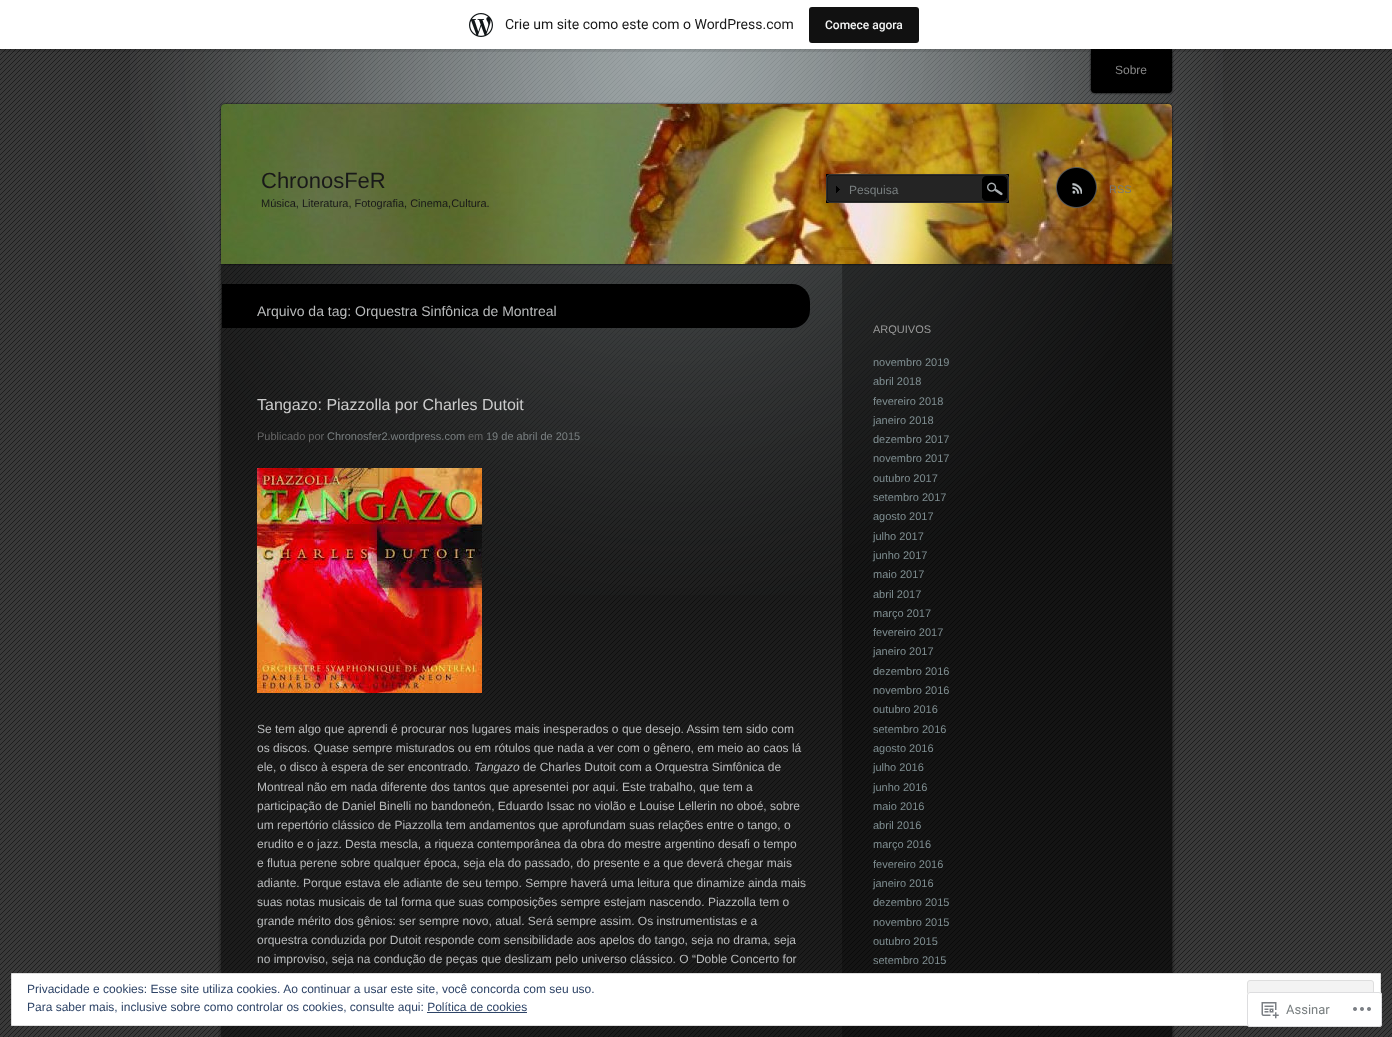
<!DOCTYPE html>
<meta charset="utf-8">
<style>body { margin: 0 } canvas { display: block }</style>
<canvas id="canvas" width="1392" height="1037"></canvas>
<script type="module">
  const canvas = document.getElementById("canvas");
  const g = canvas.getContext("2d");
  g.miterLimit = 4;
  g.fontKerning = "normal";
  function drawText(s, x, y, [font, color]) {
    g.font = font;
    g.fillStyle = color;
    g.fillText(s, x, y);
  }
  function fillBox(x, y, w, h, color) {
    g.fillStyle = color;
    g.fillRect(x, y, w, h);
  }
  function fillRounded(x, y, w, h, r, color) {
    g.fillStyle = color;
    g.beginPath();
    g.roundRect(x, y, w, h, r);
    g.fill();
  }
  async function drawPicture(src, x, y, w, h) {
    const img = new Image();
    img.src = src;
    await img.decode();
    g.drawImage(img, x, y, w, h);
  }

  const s1 = ["14px Roboto", "#191919"];
  const s2 = ["500 12px Roboto", "#F6F7F7"];
  const s3 = ["12px Liberation Sans", "#888888"];
  const s4 = ["22px Liberation Sans", "#191919"];
  const s5 = ["11px Liberation Sans", "#191919"];
  const s6 = ["12px Liberation Sans", "#797F80"];
  const s7 = ["11px Liberation Sans", "#777777"];
  const s8 = ["14px Liberation Sans", "#B8BABB"];
  const s9 = ["16px Liberation Sans", "#CCCCCC"];
  const s10 = ["11px Liberation Sans", "#666666"];
  const s11 = ["11px Liberation Sans", "#797F80"];
  const s12 = ["12px Liberation Sans", "#B8BABB"];
  const s13 = ["italic 12px Liberation Sans", "#B8BABB"];
  const s14 = ["11px Liberation Sans", "#999999"];
  const s15 = ["11px Liberation Sans", "#7F8E91"];
  const s16 = ["12px Liberation Sans", "#2E4467"];
  const s17 = ["13px Roboto", "#797F80"];

  fillBox(0, 0, 1392, 1037, "#FFFFFF");
  await drawPicture("pic1.png", 0, 49, 1392, 988);
  await drawPicture("pic3.png", 130, 49, 1093, 546);
  g.fillStyle = "#000000";
  g.filter = "blur(1px)";
  g.beginPath();
  g.roundRect(1091, 49, 81, 44, 4);
  g.fill();
  g.filter = "none";
  g.beginPath();
  g.roundRect(1091, 49, 81, 44, [0, 0, 4, 4]);
  g.fill();
  g.fillStyle = "rgba(0, 0, 0, 0.05)";
  g.filter = "blur(1px)";
  g.beginPath();
  g.rect(0, 1, 1392, 49);
  g.fill();
  g.filter = "none";
  g.fillStyle = "rgba(0, 0, 0, 0.08)";
  g.beginPath();
  g.moveTo(1, 49);
  g.lineTo(1, 52);
  g.lineTo(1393, 52);
  g.lineTo(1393, 3);
  g.lineTo(1392, 3);
  g.lineTo(1392, 49);
  g.closePath();
  g.fill();
  fillBox(0, 0, 1392, 49, "#FFFFFF");
  await drawPicture("pic2.png", 469, 13, 24, 24);
  drawText("Crie um site como este com o WordPress.com", 505, 29, s1);
  fillRounded(809, 7, 110, 36, 3, "#111111");
  drawText("Comece agora", 825, 29, s2);
  drawText("Sobre", 1115, 74, s3);
  await drawPicture("pic8.png", 218, 264, 957, 773);
  g.fillStyle = "#000000";
  g.filter = "blur(1px)";
  g.beginPath();
  g.roundRect(221, 104, 951, 160, 4);
  g.fill();
  g.filter = "none";
  await drawPicture("pic4.png", 221, 104, 951, 160);
  drawText("ChronosFeR", 261, 188, s4);
  drawText("Música, Literatura, Fotografia, Cinema,Cultura.", 261, 207, s5);
  await drawPicture("pic5.png", 826, 174, 156, 29);
  drawText("Pesquisa", 849, 194, s6);
  await drawPicture("pic6.png", 982, 174, 27, 29);
  await drawPicture("pic7.png", 1056, 167, 41, 41);
  drawText("RSS", 1109, 193, s7);
  g.fillStyle = "#000000";
  g.beginPath();
  g.roundRect(222, 284, 588, 44, [0, 18, 18, 0]);
  g.fill();
  drawText("Arquivo da tag: Orquestra Sinfônica de Montreal", 257, 316, s8);
  drawText("Tangazo: Piazzolla por Charles Dutoit", 257, 410, s9);
  drawText("Publicado por", 257, 440, s10);
  drawText("Chronosfer2.wordpress.com", 327, 440, s11);
  drawText("em", 468, 440, s10);
  drawText("19 de abril de 2015", 486, 440, s11);
  await drawPicture("pic9.png", 257, 468, 225, 225);
  drawText("Se tem algo que aprendi é procurar nos lugares mais inesperados o que desejo. Assim tem sido com", 257, 733, s12);
  drawText("os discos. Quase sempre misturados ou em rótulos que nada a ver com o gênero, em meio ao caos lá", 257, 752, s12);
  drawText("ele, o disco à espera de ser encontrado.", 257, 771, s12);
  drawText("Tangazo", 474, 771, s13);
  drawText("de Charles Dutoit com a Orquestra Simfônica de", 523, 771, s12);
  drawText("Montreal não em nada diferente dos tantos que apresentei por aqui. Este trabalho, que tem a", 257, 791, s12);
  drawText("participação de Daniel Binelli no bandoneón, Eduardo Issac no violão e Louise Lellerin no oboé, sobre", 257, 810, s12);
  drawText("um repertório clássico de Piazzolla tem andamentos que aprofundam suas relações entre o tango, o", 257, 829, s12);
  drawText("erudito e o jazz. Desta mescla, a riqueza contemporânea da obra do mestre argentino desafi o tempo", 257, 848, s12);
  drawText("e flutua perene sobre qualquer época, seja ela do passado, do presente e a que deverá chegar mais", 257, 867, s12);
  drawText("adiante. Porque estava ele adiante de seu tempo. Sempre haverá uma leitura que dinamize ainda mais", 257, 887, s12);
  drawText("suas notas musicais de tal forma que suas composições sempre estejam nascendo. Piazzolla tem o", 257, 906, s12);
  drawText("grande mérito dos gênios: ser sempre novo, atual. Será sempre assim. Os instrumentistas e a", 257, 925, s12);
  drawText("orquestra conduzida por Dutoit responde com sensibilidade aos apelos do tango, seja no drama, seja", 257, 944, s12);
  drawText("no improviso, seja na condução de peças que deslizam pelo universo clássico. O “Doble Concerto for", 257, 963, s12);
  drawText("ARQUIVOS", 873, 333, s14);
  drawText("novembro 2019", 873, 366, s15);
  drawText("abril 2018", 873, 385, s15);
  drawText("fevereiro 2018", 873, 405, s15);
  drawText("janeiro 2018", 873, 424, s15);
  drawText("dezembro 2017", 873, 443, s15);
  drawText("novembro 2017", 873, 462, s15);
  drawText("outubro 2017", 873, 482, s15);
  drawText("setembro 2017", 873, 501, s15);
  drawText("agosto 2017", 873, 520, s15);
  drawText("julho 2017", 873, 540, s15);
  drawText("junho 2017", 873, 559, s15);
  drawText("maio 2017", 873, 578, s15);
  drawText("abril 2017", 873, 598, s15);
  drawText("março 2017", 873, 617, s15);
  drawText("fevereiro 2017", 873, 636, s15);
  drawText("janeiro 2017", 873, 655, s15);
  drawText("dezembro 2016", 873, 675, s15);
  drawText("novembro 2016", 873, 694, s15);
  drawText("outubro 2016", 873, 713, s15);
  drawText("setembro 2016", 873, 733, s15);
  drawText("agosto 2016", 873, 752, s15);
  drawText("julho 2016", 873, 771, s15);
  drawText("junho 2016", 873, 791, s15);
  drawText("maio 2016", 873, 810, s15);
  drawText("abril 2016", 873, 829, s15);
  drawText("março 2016", 873, 848, s15);
  drawText("fevereiro 2016", 873, 868, s15);
  drawText("janeiro 2016", 873, 887, s15);
  drawText("dezembro 2015", 873, 906, s15);
  drawText("novembro 2015", 873, 926, s15);
  drawText("outubro 2015", 873, 945, s15);
  drawText("setembro 2015", 873, 964, s15);
  g.fillStyle = "#FFFFFF";
  g.beginPath();
  g.rect(11.5, 973.5, 1369, 52);
  g.fill();
  g.strokeStyle = "#DEDEDE";
  g.stroke();
  drawText("Privacidade e cookies: Esse site utiliza cookies. Ao continuar a usar este site, você concorda com seu uso.", 27, 993, s16);
  g.fillStyle = "#F3F3F3";
  g.beginPath();
  g.roundRect(1247.5, 980.5, 126, 38, 2.5);
  g.fill();
  g.stroke();
  drawText("Para saber mais, inclusive sobre como controlar os cookies, consulte aqui: Política de cookies", 27, 1011, s16);
  fillBox(427, 1012, 100, 1, "#2E4467");
  fillRounded(1247, 992, 135, 35, 3, "rgba(255, 255, 255, 0.98)");
  g.beginPath();
  g.roundRect(1247.5, 992.5, 134, 34, 2.5);
  g.strokeStyle = "rgba(220, 220, 222, 0.98)";
  g.stroke();
  await drawPicture("pic10.png", 1261, 1002, 18, 17);
  drawText("Assinar", 1286, 1014, s17);
  await drawPicture("pic11.png", 1353, 1007, 18, 4);
</script>
